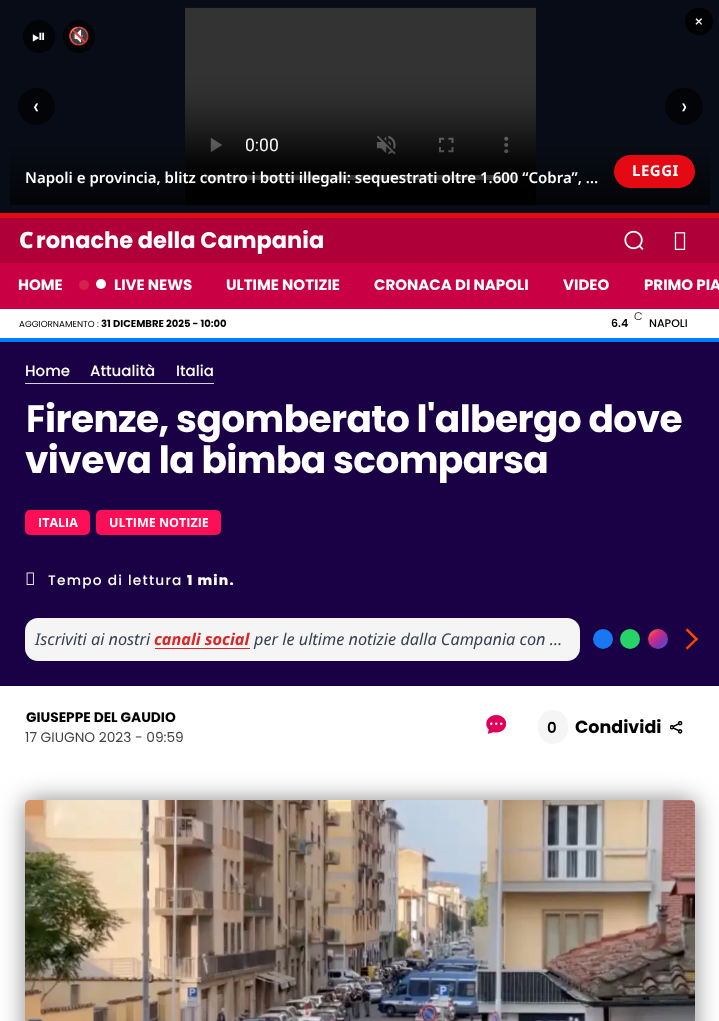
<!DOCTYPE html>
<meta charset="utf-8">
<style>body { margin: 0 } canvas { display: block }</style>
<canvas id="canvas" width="719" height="1021"></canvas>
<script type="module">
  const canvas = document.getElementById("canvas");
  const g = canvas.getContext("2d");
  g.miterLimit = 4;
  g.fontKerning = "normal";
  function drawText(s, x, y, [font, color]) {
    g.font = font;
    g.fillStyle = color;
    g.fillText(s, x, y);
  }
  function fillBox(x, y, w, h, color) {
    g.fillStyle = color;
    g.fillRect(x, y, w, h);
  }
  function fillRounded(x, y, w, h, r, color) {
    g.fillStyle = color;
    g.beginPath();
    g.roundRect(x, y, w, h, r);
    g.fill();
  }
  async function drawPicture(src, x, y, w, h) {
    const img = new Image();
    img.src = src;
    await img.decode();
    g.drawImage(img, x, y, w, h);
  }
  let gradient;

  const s1 = ["15px Poppins", "#FFFFFF"];
  const s2 = ["17.5px FreeSans", "#FFFFFF"];
  const s3 = ["17.5px Noto Color Emoji", "#FFFFFF"];
  const s4 = ["22.5px Poppins", "#FFFFFF"];
  const s5 = ["600 15px Noto Sans", "#FFFFFF"];
  const s6 = ["bold 15px Noto Sans", "#FFFFFF"];
  const s7 = ["900 22.5px Noto Sans", "#FFFFFF"];
  const s8 = ["bold 22.5px Poppins", "#FFFFFF"];
  const s9 = ["bold 15px Poppins", "#FFFFFF"];
  const s10 = ["8.75px Poppins", "#000000"];
  const s11 = ["bold 10px Poppins", "#000000"];
  const s12 = ["300 11px Poppins", "#000000"];
  const s13 = ["600 11px Poppins", "#000000"];
  const s14 = ["500 11px Poppins", "#000000"];
  const s15 = ["500 15px Poppins", "#FFFFFF"];
  const s16 = ["bold 37.5px Noto Sans", "#FFFFFF"];
  const s17 = ["bold 37.5px Poppins", "#FFFFFF"];
  const s18 = ["bold 12.5px Open Sans", "#FFFFFF"];
  const s19 = ["500 13.75px Poppins", "#FFFFFF"];
  const s20 = ["800 13.75px Poppins", "#FFFFFF"];
  const s21 = ["italic 16.25px Noto Sans", "#374151"];
  const s22 = ["italic bold 16.25px Noto Sans", "#DC2626"];
  const s23 = ["bold 13.75px Poppins", "#000000"];
  const s24 = ["13.75px Poppins", "#444444"];
  const s25 = ["600 15px Poppins", "#000000"];
  const s26 = ["bold 17.5px Poppins", "#000000"];

  fillBox(0, 0, 719, 1021, "#FFFFFF");
  fillBox(0, 0, 719, 213, "#080C16");
  fillBox(0, 213, 719, 5, "#E50914");
  fillRounded(685, 8, 28, 27, 13.5, "#020204");
  drawText("×", 694, 27, s1);
  fillRounded(23, 20, 32, 33, 16, "#020407");
  drawText("⏯", 32, 42, s2);
  fillRounded(63, 20, 32, 33, 16, "#020407");
  drawText("🔇", 68, 42, s3);
  await drawPicture("pic1.png", 185, 7, 351, 198);
  g.fillStyle = "#030408";
  g.beginPath();
  g.arc(36.5, 106.5, 18.5, 0, Math.PI * 2);
  g.fill();
  drawText("‹", 33, 114, s4);
  fillRounded(665, 88, 38, 37, 18.5, "#030408");
  drawText("›", 681, 114, s4);
  gradient = g.createLinearGradient(360, 205, 360, 143);
  gradient.addColorStop(0, "rgba(0, 0, 0, 0.65)");
  gradient.addColorStop(1, "rgba(0, 0, 0, 0)");
  g.fillStyle = gradient;
  g.fillRect(10, 145, 700, 60);
  drawText("Napoli e provincia, blitz contro i botti illegali: sequestrati oltre 1.600 “Cobra”, …", 25, 183, s5);
  fillRounded(614, 155, 81, 33, 16.5, "#E50914");
  g.letterSpacing = "0.5px";
  drawText("LEGGI", 632, 176, s6);
  fillBox(0, 218, 719, 45, "#AF003A");
  g.letterSpacing = "0px";
  drawText("C", 19, 248, s7);
  drawText("ronache della Campania", 36, 248, s8);
  await drawPicture("pic2.png", 624, 230, 20, 20);
  await drawPicture("pic3.png", 674, 232, 12, 18);
  fillBox(0, 263, 719, 46, "#C90043");
  drawText("HOME", 18, 290, s9);
  g.fillStyle = "#D3224F";
  g.beginPath();
  g.arc(84, 285, 5, 0, Math.PI * 2);
  g.fill();
  g.fillStyle = "#FFFFFF";
  g.beginPath();
  g.arc(101, 284, 5, 0, Math.PI * 2);
  g.fill();
  drawText("LIVE NEWS", 114, 290, s9);
  drawText("ULTIME NOTIZIE", 226, 290, s9);
  drawText("CRONACA DI NAPOLI", 374, 290, s9);
  drawText("VIDEO", 563, 290, s9);
  drawText("PRIMO PIA", 644, 290, s9);
  drawText("AGGIORNAMENTO :", 19, 327, s10);
  drawText("31 DICEMBRE 2025 - 10:00", 101, 327, s11);
  drawText("C", 634, 320, s12);
  drawText("6.4", 611, 327, s13);
  drawText("NAPOLI", 649, 327, s14);
  fillBox(0, 338, 719, 4, "#007EFC");
  fillBox(0, 342, 719, 344, "#1A0044");
  fillBox(25, 383, 189, 1, "#D1D1D1");
  drawText("Home", 25, 376, s15);
  drawText("Attualità", 90, 376, s15);
  drawText("Italia", 176, 376, s15);
  g.letterSpacing = "-0.6px";
  drawText("F", 25, 432, s16);
  drawText("irenze, sgomberato l'albergo dove", 45, 432, s17);
  drawText("viveva la bimba scomparsa", 25, 473, s17);
  fillRounded(25, 510, 65, 25, 5, "#FC0F56");
  g.letterSpacing = "0px";
  drawText("ITALIA", 38, 527, s18);
  fillRounded(96, 510, 125, 25, 5, "#FC0F56");
  drawText("ULTIME NOTIZIE", 109, 527, s18);
  await drawPicture("pic4.png", 26, 572, 8, 13);
  g.letterSpacing = "1.25px";
  drawText("Tempo di lettura", 48, 585, s19);
  drawText("1 min.", 187, 585, s20);
  fillRounded(25, 618, 555, 43, 13, "#F5F5F5");
  g.letterSpacing = "0px";
  drawText("Iscriviti ai nostri", 35, 645, s21);
  drawText("canali social", 154, 645, s22);
  fillBox(155, 648, 95, 1, "#DC2626");
  drawText("per le ultime notizie dalla Campania con …", 254, 645, s21);
  g.fillStyle = "#1877F2";
  g.beginPath();
  g.arc(603, 639, 10, 0, Math.PI * 2);
  g.fill();
  g.fillStyle = "#25D366";
  g.beginPath();
  g.arc(630, 639, 10, 0, Math.PI * 2);
  g.fill();
  gradient = g.createLinearGradient(648, 629, 668, 649);
  gradient.addColorStop(0, "#F58529");
  gradient.addColorStop(0.33, "#DD2A7B");
  gradient.addColorStop(0.67, "#8134AF");
  gradient.addColorStop(1, "#515BD4");
  g.fillStyle = gradient;
  g.beginPath();
  g.arc(658, 639, 10, 0, Math.PI * 2);
  g.fill();
  g.fillStyle = "#FF4500";
  g.beginPath();
  g.moveTo(685.5, 630);
  g.lineTo(687.5, 628.5);
  g.lineTo(698, 639);
  g.lineTo(696.5, 641);
  g.closePath();
  g.fill();
  g.beginPath();
  g.moveTo(685.5, 648);
  g.lineTo(696.5, 637.5);
  g.lineTo(698, 639);
  g.lineTo(687.5, 649.5);
  g.closePath();
  g.fill();
  drawText("GIUSEPPE DEL GAUDIO", 26, 722, s23);
  drawText("17 GIUGNO 2023 - 09:59", 25, 742, s24);
  await drawPicture("pic5.png", 486, 715, 20, 19);
  fillRounded(538, 710, 30, 34, 15, "#F5F5F5");
  drawText("0", 547, 733, s25);
  drawText("Condividi", 575, 733, s26);
  await drawPicture("pic6.png", 670, 721, 13, 13);
  g.fillStyle = "#888888";
  g.filter = "blur(12.5px)";
  g.beginPath();
  g.roundRect(25, 800, 670, 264, 5);
  g.fill();
  g.filter = "none";
  await drawPicture("pic7.png", 25, 800, 670, 221);
</script>
